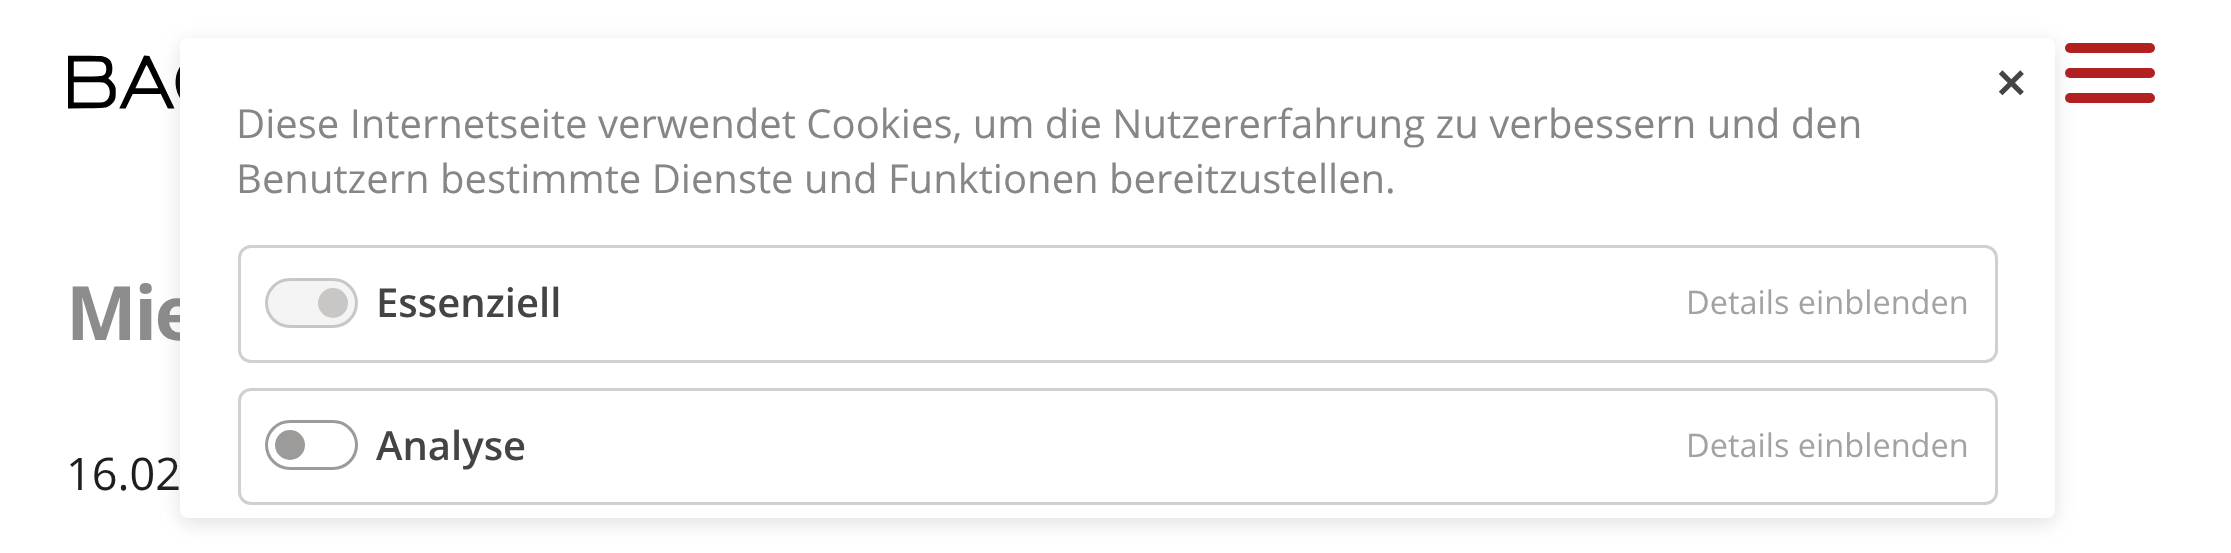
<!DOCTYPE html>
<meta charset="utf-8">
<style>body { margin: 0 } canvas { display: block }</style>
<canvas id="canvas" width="2231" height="553"></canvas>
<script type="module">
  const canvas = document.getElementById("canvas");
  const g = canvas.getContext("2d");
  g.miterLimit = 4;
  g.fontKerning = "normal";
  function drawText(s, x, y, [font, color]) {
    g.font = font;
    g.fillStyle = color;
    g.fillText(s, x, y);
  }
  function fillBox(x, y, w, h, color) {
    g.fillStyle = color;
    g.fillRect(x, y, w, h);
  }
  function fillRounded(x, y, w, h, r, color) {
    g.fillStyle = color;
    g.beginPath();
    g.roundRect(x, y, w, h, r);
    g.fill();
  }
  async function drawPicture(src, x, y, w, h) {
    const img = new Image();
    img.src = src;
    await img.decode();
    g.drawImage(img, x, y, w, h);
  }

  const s1 = ["bold 75px Open Sans", "#8C8C8C"];
  const s2 = ["45px Open Sans", "#1E1E1E"];
  const s3 = ["bold 40px DejaVu Sans", "#444444"];
  const s4 = ["40px Open Sans", "#868686"];
  const s5 = ["600 40px Open Sans", "#444444"];
  const s6 = ["32.5px Open Sans", "#A2A2A2"];

  fillBox(0, 0, 2231, 553, "#FFFFFF");
  await drawPicture("pic1.png", 68, 55, 112, 54);
  fillRounded(2065, 68, 90, 10, 5, "#B32020");
  fillRounded(2065, 43, 90, 10, 5, "#B32020");
  fillRounded(2065, 93, 90, 10, 5, "#B32020");
  g.letterSpacing = "-2.5px";
  drawText("Mie", 66, 340, s1);
  g.letterSpacing = "0px";
  drawText("16.02", 66, 490, s2);
  g.fillStyle = "rgba(99, 99, 99, 0.2)";
  g.filter = "blur(10px)";
  g.beginPath();
  g.roundRect(180, 43, 1875, 480, 8);
  g.fill();
  g.filter = "none";
  fillRounded(180, 38, 1875, 480, 8, "#FFFFFF");
  drawText("✕", 1994, 98, s3);
  drawText("Diese Internetseite verwendet Cookies, um die Nutzererfahrung zu verbessern und den", 236, 138, s4);
  drawText("Benutzern bestimmte Dienste und Funktionen bereitzustellen.", 236, 193, s4);
  g.beginPath();
  g.roundRect(239.5, 246.5, 1757, 115, 11.5);
  g.strokeStyle = "#D0D0D0";
  g.lineWidth = 3;
  g.stroke();
  g.fillStyle = "#F4F4F4";
  g.beginPath();
  g.roundRect(266.5, 279.5, 90, 47, 23.5);
  g.fill();
  g.strokeStyle = "#C8C7C5";
  g.stroke();
  drawText("Essenziell", 376, 317, s5);
  g.fillStyle = "#C8C7C5";
  g.beginPath();
  g.arc(333, 303, 15, 0, Math.PI * 2);
  g.fill();
  drawText("Details einblenden", 1686, 314, s6);
  g.beginPath();
  g.roundRect(239.5, 389.5, 1757, 114, 11.5);
  g.strokeStyle = "#D0D0D0";
  g.stroke();
  g.beginPath();
  g.roundRect(266.5, 421.5, 90, 47, 23.5);
  g.strokeStyle = "#9C9B99";
  g.stroke();
  drawText("Analyse", 376, 460, s5);
  g.fillStyle = "#9C9B99";
  g.beginPath();
  g.arc(290, 445, 15, 0, Math.PI * 2);
  g.fill();
  drawText("Details einblenden", 1686, 457, s6);
</script>
